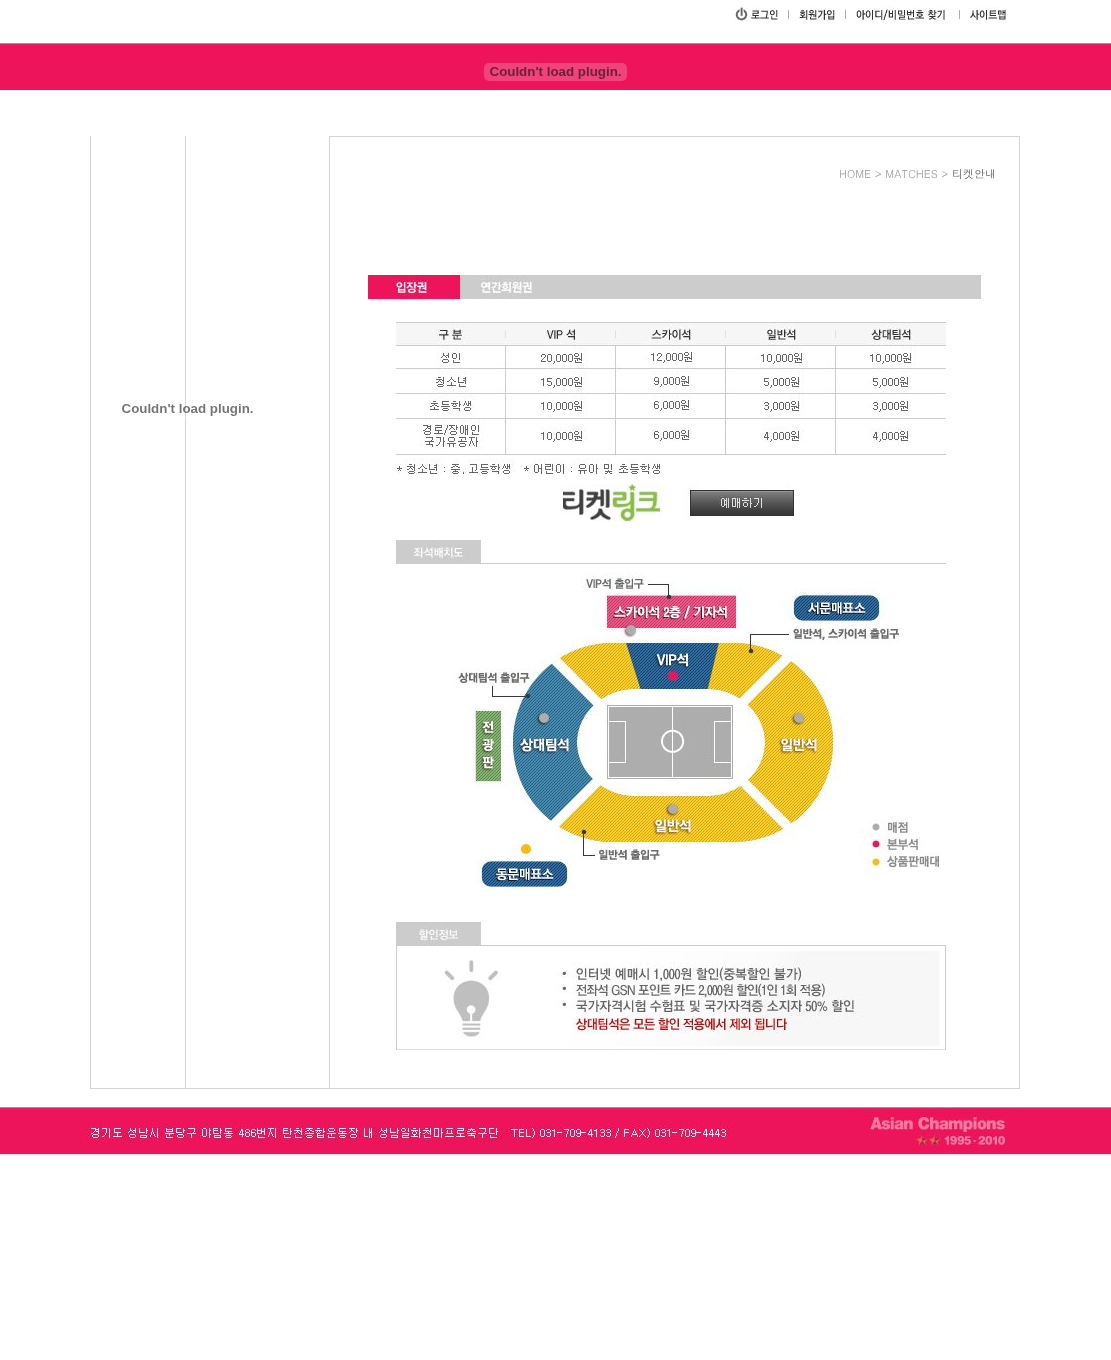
<!DOCTYPE html>
<meta charset="utf-8">
<style>body { margin: 0 } canvas { display: block }</style>
<canvas id="canvas" width="1111" height="1360"></canvas>
<script type="module">
  const canvas = document.getElementById("canvas");
  const g = canvas.getContext("2d");
  g.miterLimit = 4;
  g.fontKerning = "normal";
  function drawText(s, x, y, [font, color]) {
    g.font = font;
    g.fillStyle = color;
    g.fillText(s, x, y);
  }
  function fillBox(x, y, w, h, color) {
    g.fillStyle = color;
    g.fillRect(x, y, w, h);
  }
  async function drawPicture(src, x, y, w, h) {
    const img = new Image();
    img.src = src;
    await img.decode();
    g.drawImage(img, x, y, w, h);
  }

  const s1 = ["11px Dotum", "#999999"];
  const s2 = ["11px Dotum", "#5A5A5A"];

  fillBox(0, 0, 1111, 1360, "#FFFFFF");
  await drawPicture("pic1.png", 0, 43, 1111, 47);
  await drawPicture("pic2.png", 735, 7, 43, 14);
  await drawPicture("pic3.png", 788, 10, 1, 9);
  await drawPicture("pic4.png", 799, 7, 36, 14);
  await drawPicture("pic3.png", 845, 10, 1, 9);
  await drawPicture("pic5.png", 856, 7, 89, 14);
  await drawPicture("pic3.png", 959, 10, 1, 9);
  await drawPicture("pic6.png", 970, 7, 36, 14);
  await drawPicture("pic7.png", 484, 63, 143, 18);
  await drawPicture("pic8.png", 90, 136, 240, 952);
  fillBox(330, 136, 690, 1, "#D4D4D4");
  fillBox(1019, 136, 1, 952, "#D4D4D4");
  drawText("HOME > MATCHES >", 839, 178, s1);
  drawText("티켓안내", 952, 178, s2);
  fillBox(460, 275, 521, 24, "#CCCCCC");
  await drawPicture("pic9.png", 368, 275, 92, 24);
  await drawPicture("pic10.png", 476, 275, 56, 24);
  await drawPicture("pic11.png", 396, 322, 550, 152);
  await drawPicture("pic12.png", 562, 484, 232, 37);
  await drawPicture("pic13.png", 396, 540, 550, 347);
  await drawPicture("pic14.png", 396, 922, 550, 128);
  await drawPicture("pic15.png", 122, 400, 131, 18);
  await drawPicture("pic16.png", 90, 1088, 930, 1);
  await drawPicture("pic17.png", 0, 1107, 1111, 48);
  await drawPicture("pic18.png", 77, 1107, 929, 48);
</script>
